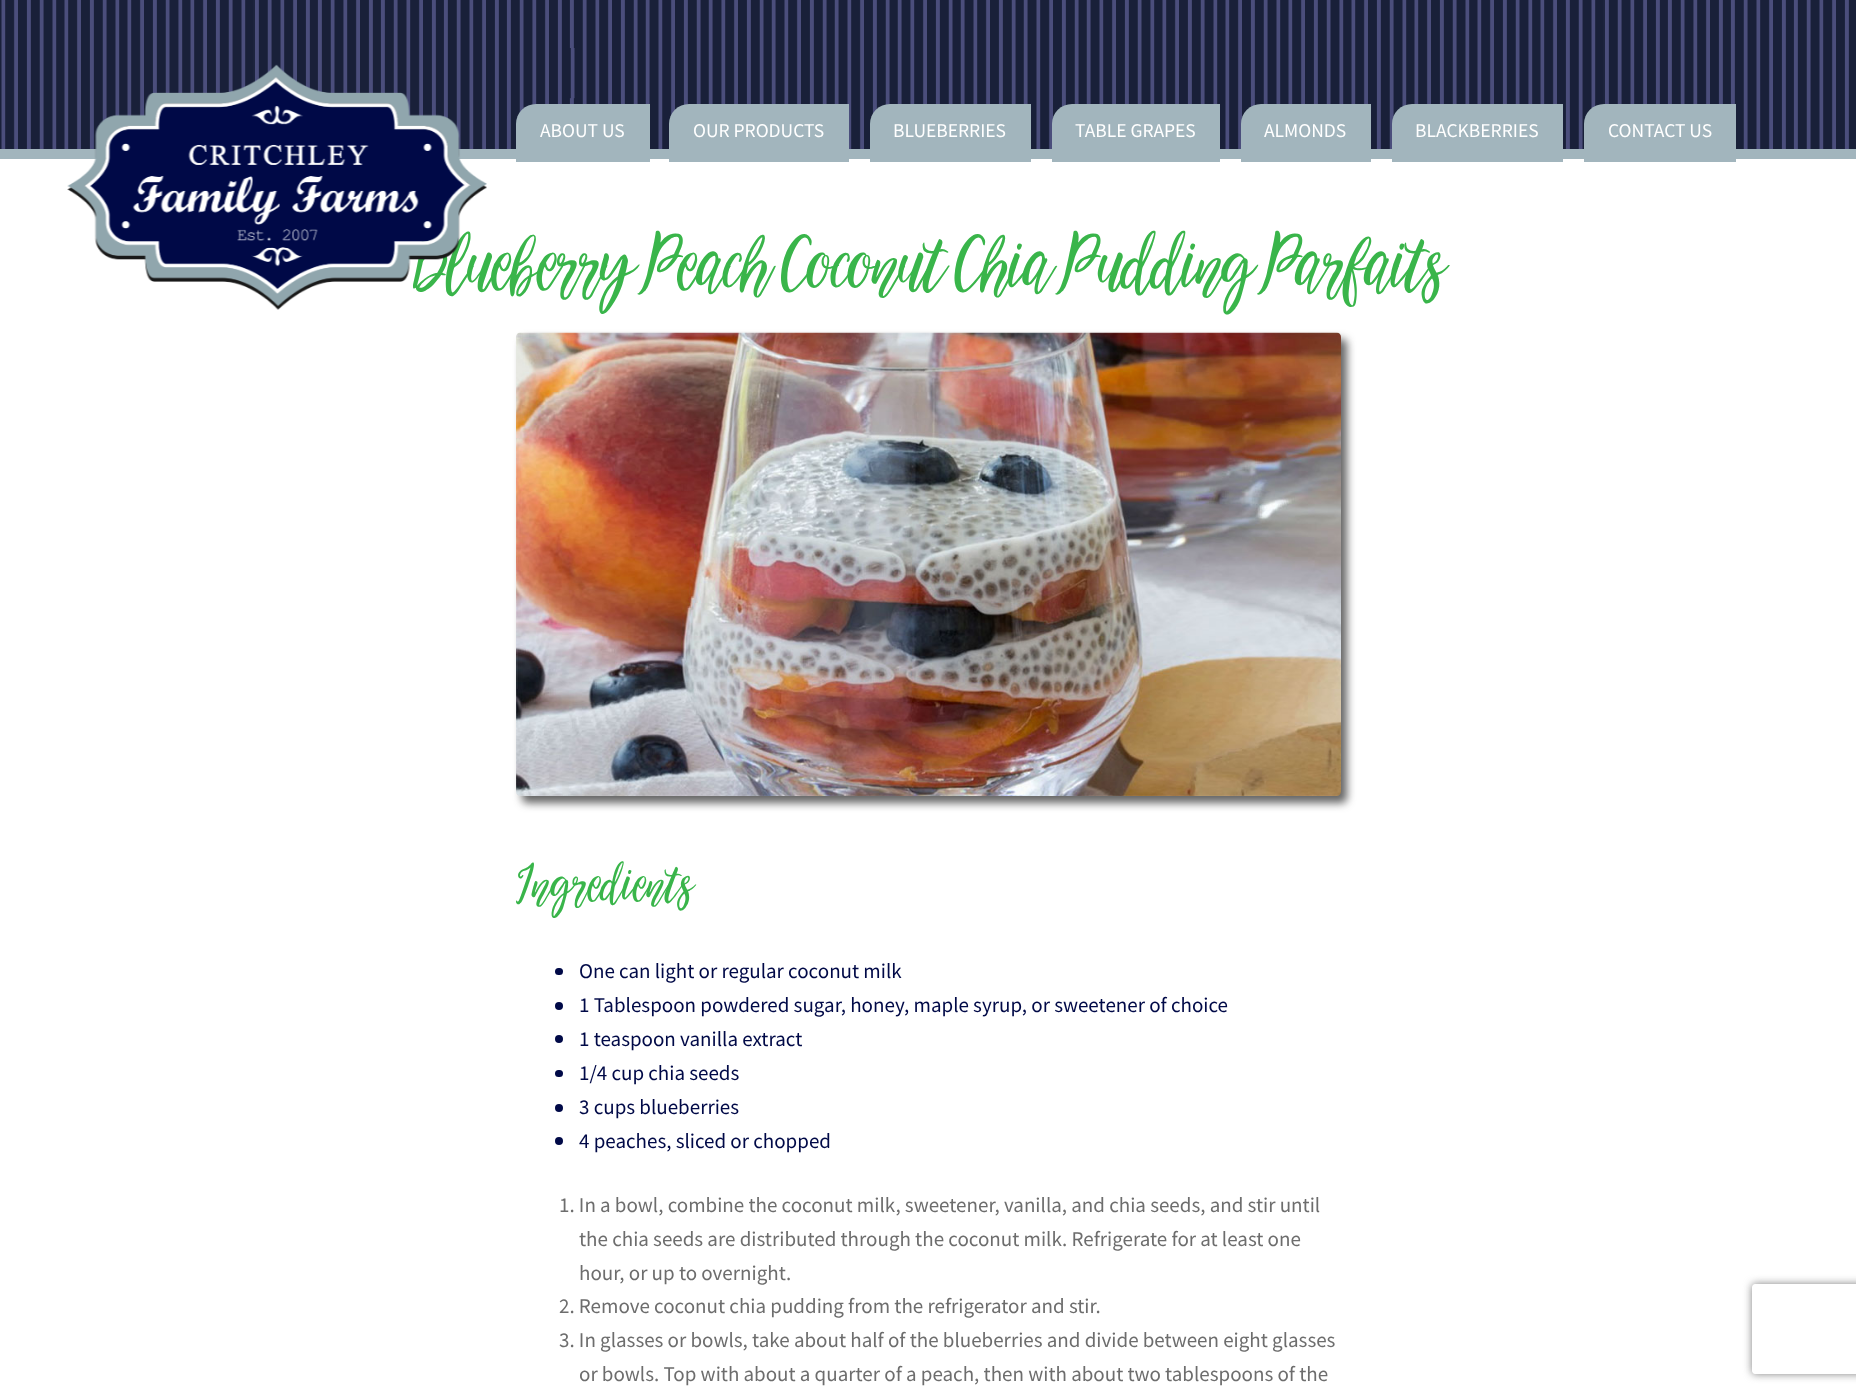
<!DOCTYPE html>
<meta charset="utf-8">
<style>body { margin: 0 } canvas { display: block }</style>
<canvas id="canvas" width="1856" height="1395"></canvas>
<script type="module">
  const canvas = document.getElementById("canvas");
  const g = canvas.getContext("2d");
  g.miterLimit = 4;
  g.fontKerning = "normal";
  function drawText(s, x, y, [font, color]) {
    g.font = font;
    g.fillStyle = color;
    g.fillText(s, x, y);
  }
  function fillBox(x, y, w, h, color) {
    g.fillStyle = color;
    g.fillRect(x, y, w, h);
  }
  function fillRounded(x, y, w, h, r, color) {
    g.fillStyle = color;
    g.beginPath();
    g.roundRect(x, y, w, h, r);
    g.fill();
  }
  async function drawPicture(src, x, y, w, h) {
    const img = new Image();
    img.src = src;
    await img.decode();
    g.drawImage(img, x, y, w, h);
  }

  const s1 = ["84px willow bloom", "#39B54A"];
  const s2 = ["19.5px Source Sans Pro", "#FFFFFF"];
  const s3 = ["57px willow bloom", "#39B54A"];
  const s4 = ["21px Source Sans Pro", "#000947"];
  const s5 = ["21px Source Sans Pro", "#6D6D6D"];

  fillBox(0, 0, 1856, 1395, "#FFFFFF");
  await drawPicture("pic1.png", 0, 0, 1856, 149);
  fillBox(0, 149, 1856, 10, "#A2B5BD");
  g.letterSpacing = "-1.5px";
  drawText("Blueberry Peach Coconut Chia Pudding Parfaits", 413, 282, s1);
  await drawPicture("pic2.png", 67, 64, 420, 246);
  g.fillStyle = "#A2B5BD";
  g.beginPath();
  g.roundRect(516, 104, 134, 58, [20, 0, 0, 0]);
  g.fill();
  g.letterSpacing = "0px";
  drawText("ABOUT US", 540, 137, s2);
  g.fillStyle = "#A2B5BD";
  g.beginPath();
  g.roundRect(669, 104, 180, 58, [20, 0, 0, 0]);
  g.fill();
  drawText("OUR PRODUCTS", 693, 137, s2);
  g.fillStyle = "#A2B5BD";
  g.beginPath();
  g.roundRect(870, 104, 161, 58, [20, 0, 0, 0]);
  g.fill();
  drawText("BLUEBERRIES", 893, 137, s2);
  g.fillStyle = "#A2B5BD";
  g.beginPath();
  g.roundRect(1052, 104, 168, 58, [20, 0, 0, 0]);
  g.fill();
  drawText("TABLE GRAPES", 1075, 137, s2);
  g.fillStyle = "#A2B5BD";
  g.beginPath();
  g.roundRect(1241, 104, 130, 58, [20, 0, 0, 0]);
  g.fill();
  drawText("ALMONDS", 1264, 137, s2);
  g.fillStyle = "#A2B5BD";
  g.beginPath();
  g.roundRect(1392, 104, 171, 58, [20, 0, 0, 0]);
  g.fill();
  drawText("BLACKBERRIES", 1415, 137, s2);
  g.fillStyle = "#A2B5BD";
  g.beginPath();
  g.roundRect(1584, 104, 152, 58, [20, 0, 0, 0]);
  g.fill();
  drawText("CONTACT US", 1608, 137, s2);
  g.fillStyle = "rgba(50, 50, 50, 0.75)";
  g.filter = "blur(4px)";
  g.beginPath();
  g.roundRect(522, 339, 825, 464, 5);
  g.fill();
  g.filter = "none";
  await drawPicture("pic3.png", 516, 332, 825, 464);
  drawText("Ingredients", 516, 896, s3);
  fillRounded(555, 968, 8, 7, 3.5, "#000947");
  drawText("One can light or regular coconut milk", 579, 978, s4);
  g.beginPath();
  g.arc(559, 1006, 4, 0, Math.PI * 2);
  g.fill();
  drawText("1 Tablespoon powdered sugar, honey, maple syrup, or sweetener of choice", 579, 1012, s4);
  g.beginPath();
  g.arc(559, 1039, 4, 0, Math.PI * 2);
  g.fill();
  drawText("1 teaspoon vanilla extract", 579, 1046, s4);
  fillRounded(555, 1070, 8, 7, 3.5, "#000947");
  drawText("1/4 cup chia seeds", 579, 1080, s4);
  g.beginPath();
  g.arc(559, 1108, 4, 0, Math.PI * 2);
  g.fill();
  drawText("3 cups blueberries", 579, 1114, s4);
  g.beginPath();
  g.arc(559, 1141, 4, 0, Math.PI * 2);
  g.fill();
  drawText("4 peaches, sliced or chopped", 579, 1148, s4);
  drawText("1. In a bowl, combine the coconut milk, sweetener, vanilla, and chia seeds, and stir until", 559, 1212, s5);
  drawText("the chia seeds are distributed through the coconut milk. Refrigerate for at least one", 579, 1246, s5);
  drawText("hour, or up to overnight.", 579, 1280, s5);
  drawText("2. Remove coconut chia pudding from the refrigerator and stir.", 559, 1313, s5);
  drawText("3. In glasses or bowls, take about half of the blueberries and divide between eight glasses", 559, 1347, s5);
  drawText("or bowls. Top with about a quarter of a peach, then with about two tablespoons of the", 579, 1381, s5);
  g.save();
  g.beginPath();
  g.moveTo(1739, 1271);
  g.lineTo(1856, 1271);
  g.lineTo(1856, 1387);
  g.lineTo(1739, 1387);
  g.closePath();
  g.moveTo(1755, 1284);
  g.lineTo(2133, 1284);
  g.bezierCurveTo(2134.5, 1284, 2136, 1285.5, 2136, 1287);
  g.lineTo(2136, 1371);
  g.bezierCurveTo(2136, 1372.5, 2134.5, 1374, 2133, 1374);
  g.lineTo(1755, 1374);
  g.bezierCurveTo(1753.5, 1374, 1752, 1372.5, 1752, 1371);
  g.lineTo(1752, 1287);
  g.bezierCurveTo(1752, 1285.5, 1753.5, 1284, 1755, 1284);
  g.closePath();
  g.clip("evenodd");
  g.fillStyle = "#808080";
  g.filter = "blur(4px)";
  g.beginPath();
  g.roundRect(1752, 1284, 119, 90, 3);
  g.fill();
  g.filter = "none";
  g.restore();
</script>
